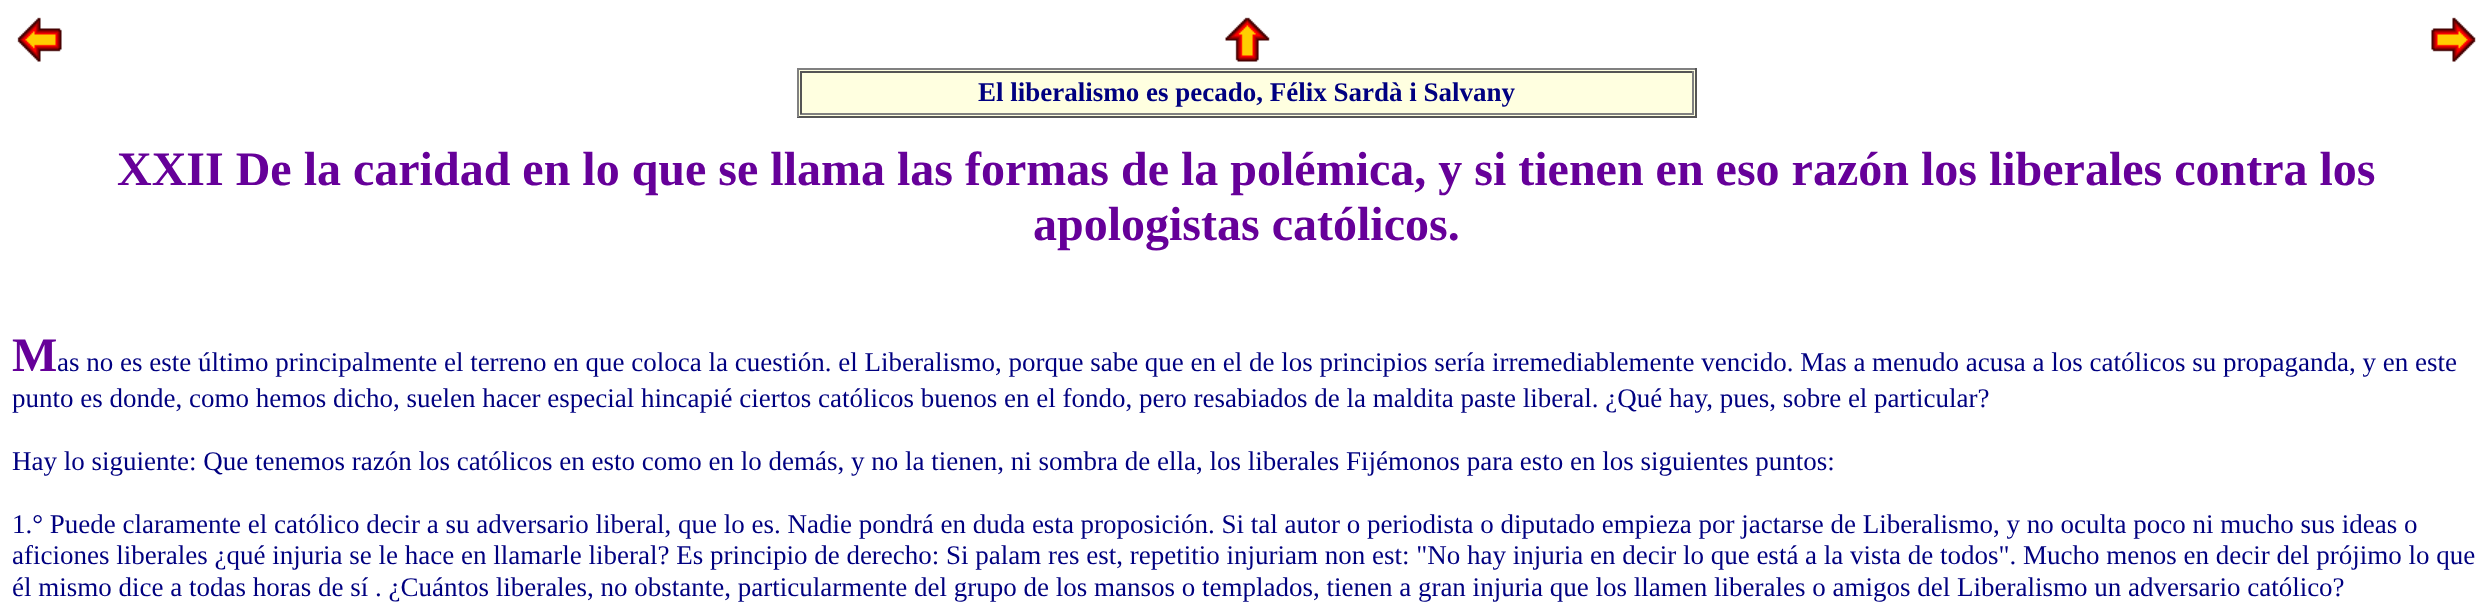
<!DOCTYPE html>
<meta charset="utf-8">
<style>body { margin: 0 } canvas { display: block }</style>
<canvas id="canvas" width="2492" height="613"></canvas>
<script type="module">
  const canvas = document.getElementById("canvas");
  const g = canvas.getContext("2d");
  g.miterLimit = 4;
  g.fontKerning = "normal";
  function drawText(s, x, y, [font, color]) {
    g.font = font;
    g.fillStyle = color;
    g.fillText(s, x, y);
  }
  function fillBox(x, y, w, h, color) {
    g.fillStyle = color;
    g.fillRect(x, y, w, h);
  }
  async function drawPicture(src, x, y, w, h) {
    const img = new Image();
    img.src = src;
    await img.decode();
    g.drawImage(img, x, y, w, h);
  }

  const s1 = ["bold 27px Liberation Serif", "#000080"];
  const s2 = ["bold 48px Liberation Serif", "#660099"];
  const s3 = ["27px Liberation Serif", "#000080"];

  fillBox(0, 0, 2492, 613, "#FFFFFF");
  await drawPicture("pic1.png", 17, 17, 45, 45);
  await drawPicture("pic2.png", 1225, 17, 45, 45);
  await drawPicture("pic3.png", 2431, 17, 45, 45);
  fillBox(799, 70, 896, 46, "#FFFFE0");
  fillBox(797, 68, 900, 2, "#808080");
  fillBox(1695, 68, 2, 49, "#555555");
  fillBox(797, 116, 900, 2, "#555555");
  fillBox(797, 68, 2, 49, "#808080");
  fillBox(800, 71, 894, 2, "#555555");
  fillBox(1692, 71, 2, 43, "#808080");
  fillBox(800, 113, 894, 2, "#808080");
  fillBox(800, 71, 2, 43, "#555555");
  drawText("El liberalismo es pecado, Félix Sardà i Salvany", 978, 101, s1);
  drawText("XXII De la caridad en lo que se llama las formas de la polémica, y si tienen en eso razón los liberales contra los", 117, 185, s2);
  drawText("apologistas católicos.", 1033, 240, s2);
  drawText("M", 12, 371, s2);
  drawText("as no es este último principalmente el terreno en que coloca la cuestión. el Liberalismo, porque sabe que en el de los principios sería irremediablemente vencido. Mas a menudo acusa a los católicos su propaganda, y en este", 57, 371, s3);
  drawText("punto es donde, como hemos dicho, suelen hacer especial hincapié ciertos católicos buenos en el fondo, pero resabiados de la maldita paste liberal. ¿Qué hay, pues, sobre el particular?", 12, 407, s3);
  drawText("Hay lo siguiente: Que tenemos razón los católicos en esto como en lo demás, y no la tienen, ni sombra de ella, los liberales Fijémonos para esto en los siguientes puntos:", 12, 470, s3);
  drawText("1.° Puede claramente el católico decir a su adversario liberal, que lo es. Nadie pondrá en duda esta proposición. Si tal autor o periodista o diputado empieza por jactarse de Liberalismo, y no oculta poco ni mucho sus ideas o", 12, 533, s3);
  drawText("aficiones liberales ¿qué injuria se le hace en llamarle liberal? Es principio de derecho: Si palam res est, repetitio injuriam non est: \"No hay injuria en decir lo que está a la vista de todos\". Mucho menos en decir del prójimo lo que", 12, 564, s3);
  drawText("él mismo dice a todas horas de sí . ¿Cuántos liberales, no obstante, particularmente del grupo de los mansos o templados, tienen a gran injuria que los llamen liberales o amigos del Liberalismo un adversario católico?", 12, 596, s3);
</script>
